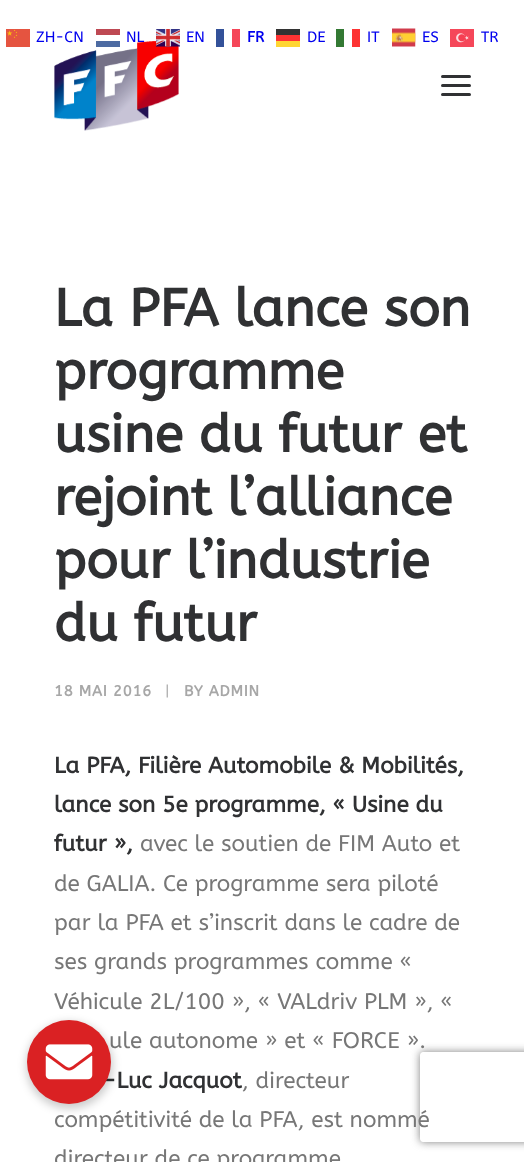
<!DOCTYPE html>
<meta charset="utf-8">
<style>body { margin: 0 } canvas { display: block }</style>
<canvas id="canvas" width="524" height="1162"></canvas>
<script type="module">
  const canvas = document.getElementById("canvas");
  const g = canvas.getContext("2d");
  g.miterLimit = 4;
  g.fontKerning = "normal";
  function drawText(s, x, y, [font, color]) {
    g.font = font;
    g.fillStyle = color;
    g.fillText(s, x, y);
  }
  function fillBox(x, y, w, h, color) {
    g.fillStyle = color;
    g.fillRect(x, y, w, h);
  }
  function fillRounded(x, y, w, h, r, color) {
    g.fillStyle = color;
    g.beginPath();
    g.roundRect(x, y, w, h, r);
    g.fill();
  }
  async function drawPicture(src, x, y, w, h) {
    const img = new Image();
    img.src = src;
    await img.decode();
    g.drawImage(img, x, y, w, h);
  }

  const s1 = ["15px ABeeZee", "#0000EE"];
  const s2 = ["bold 15px ABeeZee", "#0000EE"];
  const s3 = ["bold 52.5px ABeeZee", "#303133"];
  const s4 = ["bold 15px ABeeZee", "#A7A7A7"];
  const s5 = ["15px ABeeZee", "#A7A7A7"];
  const s6 = ["bold 22.5px ABeeZee", "#303133"];
  const s7 = ["22.5px ABeeZee", "#777777"];

  fillBox(0, 0, 524, 1162, "#FFFFFF");
  await drawPicture("pic1.png", 6, 29, 24, 18);
  await drawPicture("pic5.png", 54, 40, 125, 91);
  drawText("ZH-CN", 36, 42, s1);
  drawText("NL", 126, 42, s1);
  fillBox(96, 41, 24, 6, "#4D6BA2");
  fillBox(96, 29, 24, 6, "#BE4953");
  await drawPicture("pic2.png", 156, 29, 24, 18);
  drawText("EN", 186, 42, s1);
  drawText("FR", 247, 42, s2);
  fillBox(216, 29, 8, 18, "#335199");
  fillBox(232, 29, 8, 18, "#F54659");
  drawText("DE", 307, 42, s1);
  fillBox(276, 41, 24, 6, "#FFD633");
  fillBox(276, 29, 24, 6, "#333333");
  fillBox(276, 35, 24, 6, "#FF3333");
  drawText("IT", 367, 42, s1);
  fillBox(336, 29, 8, 18, "#337933");
  fillBox(352, 29, 8, 18, "#FD3333");
  await drawPicture("pic3.png", 392, 28, 24, 19);
  drawText("ES", 422, 42, s1);
  await drawPicture("pic4.png", 450, 29, 24, 18);
  drawText("TR", 481, 42, s1);
  fillRounded(441, 84, 30, 3, 1.5, "#303133");
  fillRounded(441, 75, 30, 3, 1.5, "#303133");
  fillRounded(441, 93, 30, 3, 1.5, "#303133");
  drawText("La PFA lance son", 54, 326, s3);
  drawText("programme", 54, 389, s3);
  drawText("usine du futur et", 54, 452, s3);
  drawText("rejoint l’alliance", 54, 515, s3);
  drawText("pour l’industrie", 54, 578, s3);
  drawText("du futur", 54, 641, s3);
  g.letterSpacing = "0.75px";
  drawText("18 MAI 2016", 54, 696, s4);
  drawText("|", 165, 696, s5);
  drawText("BY ADMIN", 184, 696, s4);
  g.letterSpacing = "0px";
  drawText("La PFA, Filière Automobile & Mobilités,", 54, 773, s6);
  drawText("lance son 5e programme, « Usine du", 54, 812, s6);
  drawText("futur »,", 54, 851, s6);
  drawText("avec le soutien de FIM Auto et", 140, 851, s7);
  drawText("de GALIA. Ce programme sera piloté", 54, 891, s7);
  drawText("par la PFA et s’inscrit dans le cadre de", 54, 930, s7);
  drawText("ses grands programmes comme «", 54, 969, s7);
  drawText("Véhicule 2L/100 », « VALdriv PLM », «", 54, 1009, s7);
  drawText("ule autonome » et « FORCE ».", 109, 1048, s7);
  drawText("-Luc Jacquot", 103, 1088, s6);
  drawText(", directeur", 242, 1088, s7);
  drawText("compétitivité de la PFA, est nommé", 54, 1127, s7);
  drawText("directeur de ce programme", 54, 1166, s7);
  g.fillStyle = "rgba(0, 0, 0, 0.2)";
  g.filter = "blur(4.5px)";
  g.beginPath();
  g.roundRect(26, 1022, 87, 87, 43.5);
  g.fill();
  g.filter = "none";
  g.fillStyle = "#DA2123";
  g.beginPath();
  g.arc(69, 1062, 42, 0, Math.PI * 2);
  g.fill();
  await drawPicture("pic6.png", 45, 1044, 48, 36);
  g.save();
  g.beginPath();
  g.moveTo(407, 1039);
  g.lineTo(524, 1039);
  g.lineTo(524, 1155);
  g.lineTo(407, 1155);
  g.closePath();
  g.moveTo(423, 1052);
  g.lineTo(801, 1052);
  g.bezierCurveTo(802.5, 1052, 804, 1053.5, 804, 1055);
  g.lineTo(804, 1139);
  g.bezierCurveTo(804, 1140.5, 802.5, 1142, 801, 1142);
  g.lineTo(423, 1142);
  g.bezierCurveTo(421.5, 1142, 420, 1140.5, 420, 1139);
  g.lineTo(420, 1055);
  g.bezierCurveTo(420, 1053.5, 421.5, 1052, 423, 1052);
  g.closePath();
  g.clip("evenodd");
  g.fillStyle = "#808080";
  g.filter = "blur(4px)";
  g.beginPath();
  g.roundRect(420, 1052, 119, 90, 3);
  g.fill();
  g.filter = "none";
  g.restore();
</script>
